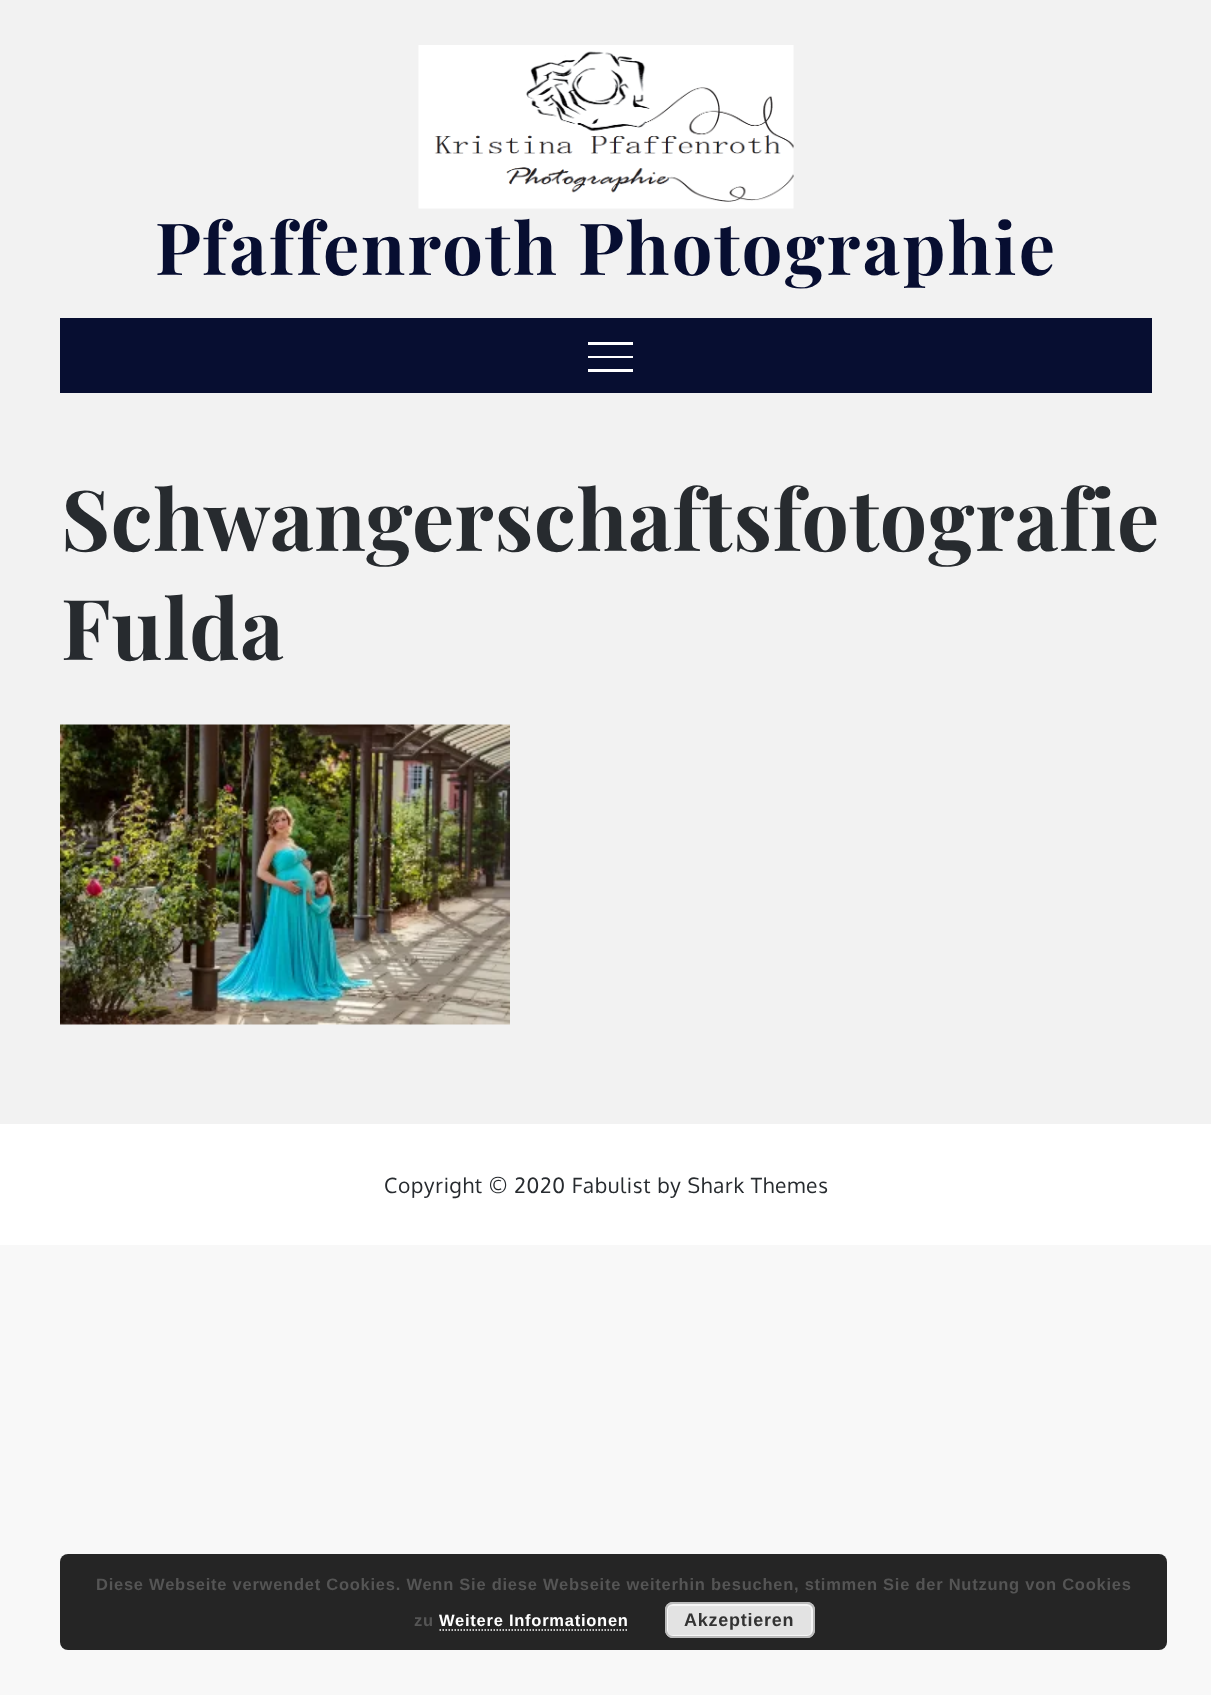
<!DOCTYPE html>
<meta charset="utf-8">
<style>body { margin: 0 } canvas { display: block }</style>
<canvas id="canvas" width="1211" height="1695"></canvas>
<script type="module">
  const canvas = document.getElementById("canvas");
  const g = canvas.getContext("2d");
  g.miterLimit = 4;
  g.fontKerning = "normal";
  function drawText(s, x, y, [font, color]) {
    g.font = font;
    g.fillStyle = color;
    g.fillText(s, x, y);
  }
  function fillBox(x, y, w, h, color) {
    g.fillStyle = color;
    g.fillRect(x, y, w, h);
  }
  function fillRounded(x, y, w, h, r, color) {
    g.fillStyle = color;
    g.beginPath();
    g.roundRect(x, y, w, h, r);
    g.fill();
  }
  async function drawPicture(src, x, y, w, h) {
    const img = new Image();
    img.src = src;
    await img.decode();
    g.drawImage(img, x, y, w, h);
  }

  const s1 = ["bold 72px Playfair Display", "#070E31"];
  const s2 = ["bold 84px Playfair Display", "#272B2F"];
  const s3 = ["21px Oxygen", "#272B2F"];
  const s4 = ["bold 16.5px Liberation Sans", "#555555"];
  const s5 = ["bold 16.5px Liberation Sans", "#FFFFFF"];
  const s6 = ["bold 18px Liberation Sans", "#333333"];

  fillBox(0, 0, 1211, 1695, "#F8F8F8");
  fillBox(0, 0, 1211, 1124, "#F2F2F2");
  await drawPicture("pic1.png", 418, 45, 376, 164);
  g.letterSpacing = "2.25px";
  drawText("Pfaffenroth Photographie", 155, 275, s1);
  fillBox(60, 318, 1092, 75, "#070E31");
  fillBox(588, 342, 45, 3, "#FFFFFF");
  fillBox(588, 356, 45, 2, "#FFFFFF");
  fillBox(588, 369, 45, 3, "#FFFFFF");
  g.letterSpacing = "0.75px";
  drawText("Schwangerschaftsfotografie", 61, 551, s2);
  drawText("Fulda", 61, 660, s2);
  await drawPicture("pic2.png", 60, 724, 450, 301);
  fillBox(0, 1124, 1211, 121, "#FFFFFF");
  drawText("Copyright © 2020 Fabulist by Shark Themes", 384, 1193, s3);
  fillRounded(60, 1554, 1107, 96, 8, "#252525");
  drawText("Diese Webseite verwendet Cookies. Wenn Sie diese Webseite weiterhin besuchen, stimmen Sie der Nutzung von Cookies", 96, 1590, s4);
  drawText("zu", 414, 1626, s4);
  drawText("Weitere Informationen", 439, 1626, s5);
  g.beginPath();
  g.moveTo(439.5, 1630);
  g.lineTo(628.5, 1630);
  g.strokeStyle = "#FFFFFF";
  g.lineWidth = 1.5;
  g.setLineDash([1.5, 1.5]);
  g.stroke();
  fillRounded(665, 1602, 150, 36, 8, "#E3E3E3");
  g.beginPath();
  g.roundRect(667, 1605, 145, 31, 5);
  g.strokeStyle = "#F6F6F6";
  g.lineWidth = 2;
  g.setLineDash([]);
  g.stroke();
  g.beginPath();
  g.roundRect(666, 1603, 148, 34, 7);
  g.strokeStyle = "#BBBBBB";
  g.stroke();
  drawText("Akzeptieren", 684, 1626, s6);
</script>
